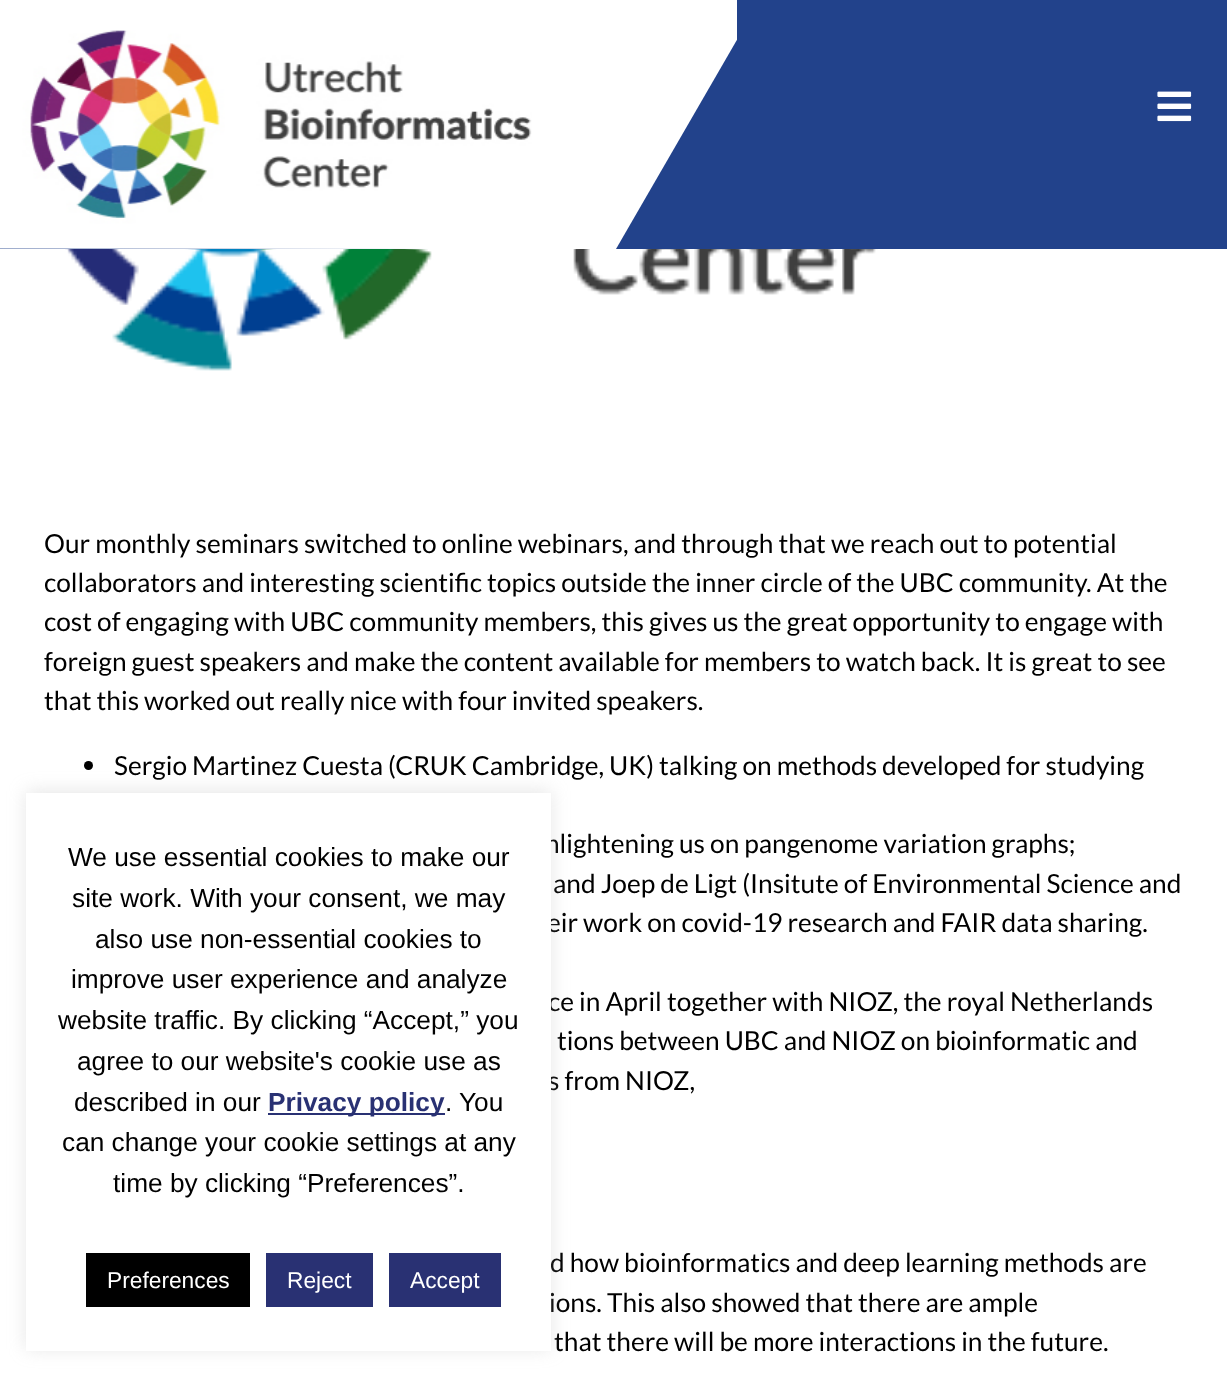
<!DOCTYPE html>
<meta charset="utf-8">
<style>body { margin: 0 } canvas { display: block }</style>
<canvas id="canvas" width="1227" height="1376"></canvas>
<script type="module">
  const canvas = document.getElementById("canvas");
  const g = canvas.getContext("2d");
  g.miterLimit = 4;
  g.fontKerning = "normal";
  function drawText(s, x, y, [font, color]) {
    g.font = font;
    g.fillStyle = color;
    g.fillText(s, x, y);
  }
  function fillBox(x, y, w, h, color) {
    g.fillStyle = color;
    g.fillRect(x, y, w, h);
  }
  async function drawPicture(src, x, y, w, h) {
    const img = new Image();
    img.src = src;
    await img.decode();
    g.drawImage(img, x, y, w, h);
  }
  let gradient;

  const s1 = ["26.25px Lato", "#000000"];
  const s2 = ["26.25px Liberation Sans", "#000000"];
  const s3 = ["bold 26.25px Liberation Sans", "#293173"];
  const s4 = ["22.75px Liberation Sans", "#FFFFFF"];

  fillBox(0, 0, 1227, 1376, "#FFFFFF");
  gradient = g.createLinearGradient(781, -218, 447, 467);
  gradient.addColorStop(0.75, "#FFFFFF");
  gradient.addColorStop(1, "#22428B");
  g.fillStyle = gradient;
  g.fillRect(0, 40, 429, 209);
  await drawPicture("pic1.png", 0, 30, 532, 219);
  g.fillStyle = "#22428B";
  g.beginPath();
  g.moveTo(760, 0);
  g.lineTo(1006, 0);
  g.lineTo(862, 249);
  g.lineTo(616, 249);
  g.closePath();
  g.fill();
  fillBox(737, 0, 490, 249, "#22428B");
  await drawPicture("pic2.png", 1157, 91, 35, 31);
  await drawPicture("pic3.png", 65, 249, 813, 122);
  drawText("Our monthly seminars switched to online webinars, and through that we reach out to potential", 44, 553, s1);
  drawText("collaborators and interesting scientific topics outside the inner circle of the UBC community. At the", 44, 592, s1);
  drawText("cost of engaging with UBC community members, this gives us the great opportunity to engage with", 44, 631, s1);
  drawText("foreign guest speakers and make the content available for members to watch back. It is great to see", 44, 671, s1);
  drawText("that this worked out really nice with four invited speakers.", 44, 710, s1);
  g.beginPath();
  g.arc(88.5, 765.5, 4.5, 0, Math.PI * 2);
  g.fill();
  drawText("Sergio Martinez Cuesta (CRUK Cambridge, UK) talking on methods developed for studying", 114, 775, s1);
  drawText("nlightening us on pangenome variation graphs;", 545, 853, s1);
  drawText("and Joep de Ligt (Insitute of Environmental Science and", 553, 893, s1);
  drawText("eir work on covid-19 research and FAIR data sharing.", 547, 932, s1);
  drawText("ce in April together with NIOZ, the royal Netherlands", 548, 1011, s1);
  drawText("tions between UBC and NIOZ on bioinformatic and", 557, 1050, s1);
  drawText("s from NIOZ,", 548, 1090, s1);
  drawText("d how bioinformatics and deep learning methods are", 550, 1272, s1);
  drawText("ions. This also showed that there are ample", 549, 1312, s1);
  drawText("that there will be more interactions in the future.", 554, 1351, s1);
  g.fillStyle = "rgba(172, 171, 171, 0.3)";
  g.filter = "blur(9px)";
  g.beginPath();
  g.rect(26, 791, 525, 558);
  g.fill();
  g.filter = "none";
  fillBox(26, 793, 525, 558, "#FFFFFF");
  drawText("We use essential cookies to make our", 68, 866, s2);
  drawText("site work. With your consent, we may", 72, 907, s2);
  drawText("also use non-essential cookies to", 95, 948, s2);
  drawText("improve user experience and analyze", 71, 988, s2);
  drawText("website traffic. By clicking “Accept,” you", 58, 1029, s2);
  drawText("agree to our website's cookie use as", 77, 1070, s2);
  drawText("described in our", 74, 1111, s2);
  fillBox(268, 1113, 177, 2, "#293173");
  drawText("Privacy policy", 268, 1111, s3);
  drawText(".", 445, 1111, s2);
  drawText("You", 459, 1111, s2);
  drawText("can change your cookie settings at any", 62, 1151, s2);
  drawText("time by clicking “Preferences”.", 113, 1192, s2);
  fillBox(86, 1253, 164, 54, "#000000");
  drawText("Preferences", 107, 1288, s4);
  fillBox(266, 1253, 107, 54, "#293173");
  drawText("Reject", 287, 1288, s4);
  fillBox(389, 1253, 112, 54, "#293173");
  drawText("Accept", 410, 1288, s4);
</script>
